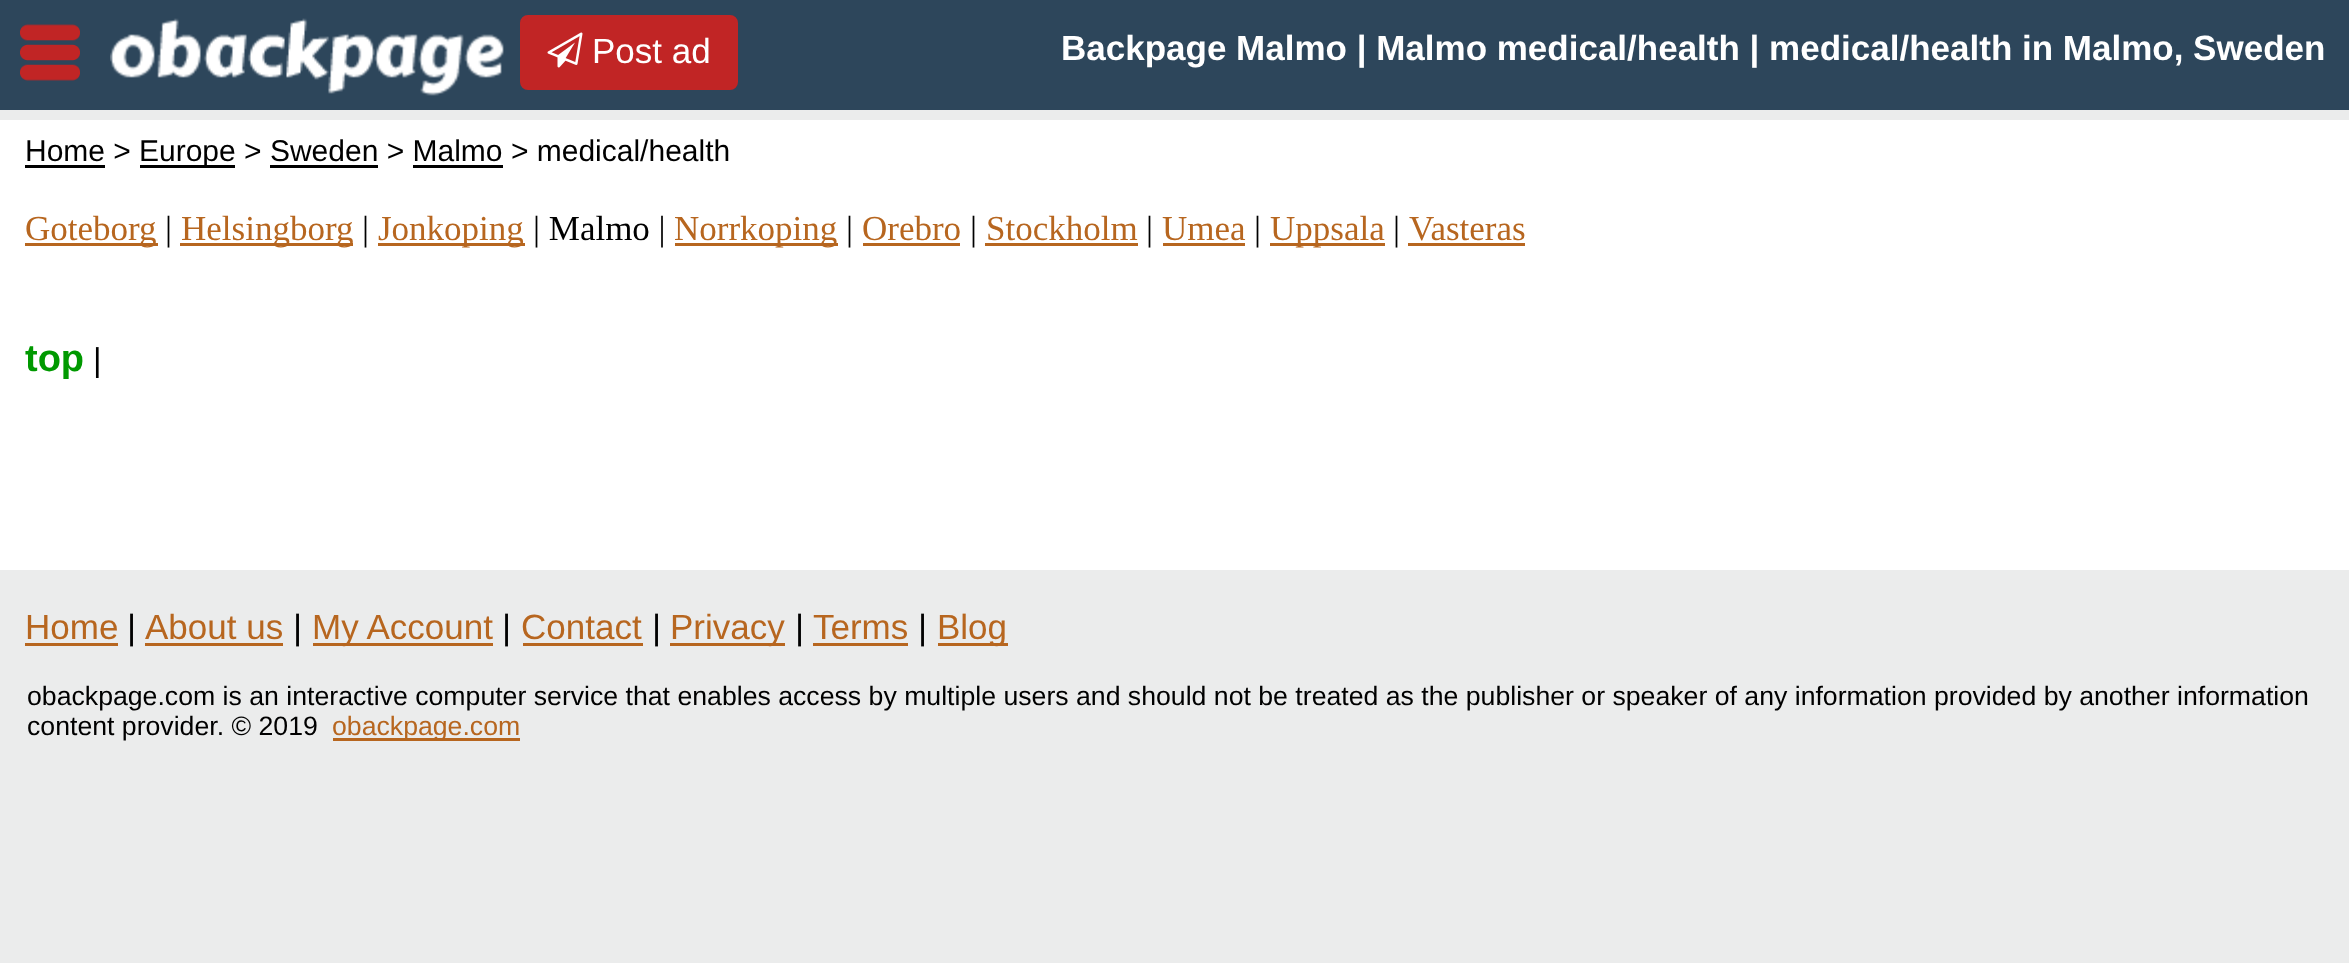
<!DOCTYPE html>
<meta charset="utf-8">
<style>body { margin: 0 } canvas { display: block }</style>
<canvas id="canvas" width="2349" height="963"></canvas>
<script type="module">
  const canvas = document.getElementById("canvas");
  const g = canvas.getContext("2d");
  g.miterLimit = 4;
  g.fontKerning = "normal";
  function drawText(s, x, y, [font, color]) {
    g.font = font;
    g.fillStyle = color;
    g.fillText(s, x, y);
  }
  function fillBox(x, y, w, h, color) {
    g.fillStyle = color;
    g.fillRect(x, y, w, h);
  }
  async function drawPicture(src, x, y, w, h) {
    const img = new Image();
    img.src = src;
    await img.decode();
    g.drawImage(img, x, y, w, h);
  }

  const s1 = ["35px Liberation Sans", "#FFFFFF"];
  const s2 = ["bold 35px Liberation Sans", "#FFFFFF"];
  const s3 = ["30px Liberation Sans", "#000000"];
  const s4 = ["35px Liberation Serif", "#B7661F"];
  const s5 = ["35px Liberation Serif", "#000000"];
  const s6 = ["bold 38px Liberation Sans", "#009900"];
  const s7 = ["33px Liberation Sans", "#000000"];
  const s8 = ["35px Liberation Sans", "#B7661F"];
  const s9 = ["35px Liberation Sans", "#000000"];
  const s10 = ["26.67px Liberation Sans", "#000000"];
  const s11 = ["26.67px Liberation Sans", "#B7661F"];

  fillBox(0, 0, 2349, 963, "#EBECEC");
  fillBox(0, 0, 2349, 110, "#2D465B");
  await drawPicture("pic1.png", 20, 24, 60, 57);
  await drawPicture("pic2.png", 110, 18, 394, 78);
  g.fillStyle = "#C12525";
  g.beginPath();
  g.roundRect(521.5, 16.5, 215, 72, 6.5);
  g.fill();
  g.strokeStyle = "#C12525";
  g.lineWidth = 3;
  g.stroke();
  await drawPicture("pic3.png", 547, 32, 36, 36);
  drawText("Post ad", 592, 63, s1);
  drawText("Backpage Malmo | Malmo medical/health | medical/health in Malmo, Sweden", 1061, 60, s2);
  fillBox(0, 120, 2349, 450, "#FFFFFF");
  drawText("Home >", 25, 161, s3);
  fillBox(25, 165, 80, 3, "#000000");
  fillBox(140, 165, 95, 3, "#000000");
  drawText("Europe > Sweden > Malmo > medical/health", 139, 161, s3);
  fillBox(270, 165, 108, 3, "#000000");
  fillBox(413, 165, 90, 3, "#000000");
  fillBox(25, 243, 133, 3, "#B7661F");
  drawText("Goteborg", 25, 240, s4);
  drawText("|", 165, 240, s5);
  fillBox(180, 243, 173, 3, "#B7661F");
  drawText("Helsingborg", 181, 240, s4);
  drawText("|", 362, 240, s5);
  fillBox(378, 243, 147, 3, "#B7661F");
  drawText("Jonkoping", 378, 240, s4);
  drawText("| Malmo |", 533, 240, s5);
  fillBox(675, 243, 163, 3, "#B7661F");
  drawText("Norrkoping", 674, 240, s4);
  drawText("|", 846, 240, s5);
  drawText("Orebro", 862, 240, s4);
  fillBox(863, 243, 97, 3, "#B7661F");
  drawText("|", 970, 240, s5);
  drawText("Stockholm", 986, 240, s4);
  fillBox(985, 243, 153, 3, "#B7661F");
  drawText("|", 1146, 240, s5);
  drawText("Umea", 1162, 240, s4);
  fillBox(1163, 243, 82, 3, "#B7661F");
  drawText("|", 1254, 240, s5);
  fillBox(1270, 243, 115, 3, "#B7661F");
  drawText("Uppsala", 1270, 240, s4);
  drawText("|", 1393, 240, s5);
  drawText("Vasteras", 1409, 240, s4);
  fillBox(1408, 243, 117, 3, "#B7661F");
  drawText("top", 25, 371, s6);
  drawText("|", 93, 371, s7);
  drawText("Home", 25, 639, s8);
  fillBox(25, 643, 93, 3, "#B7661F");
  drawText("|", 127, 639, s9);
  drawText("About us", 145, 639, s8);
  fillBox(145, 643, 138, 3, "#B7661F");
  drawText("|", 293, 639, s9);
  fillBox(313, 643, 180, 3, "#B7661F");
  drawText("My Account", 312, 639, s8);
  drawText("|", 502, 639, s9);
  drawText("Contact", 521, 639, s8);
  fillBox(523, 643, 120, 3, "#B7661F");
  drawText("|", 652, 639, s9);
  fillBox(670, 643, 115, 3, "#B7661F");
  drawText("Privacy", 670, 639, s8);
  drawText("|", 795, 639, s9);
  drawText("Terms", 813, 639, s8);
  fillBox(813, 643, 95, 3, "#B7661F");
  drawText("|", 918, 639, s9);
  fillBox(938, 643, 70, 3, "#B7661F");
  drawText("Blog", 937, 639, s8);
  drawText("obackpage.com is an interactive computer service that enables access by multiple users and should not be treated as the publisher or speaker of any information provided by another information", 27, 705, s10);
  drawText("content provider. © 2019", 27, 735, s10);
  fillBox(333, 738, 187, 3, "#B7661F");
  drawText("obackpage.com", 332, 735, s11);
</script>
